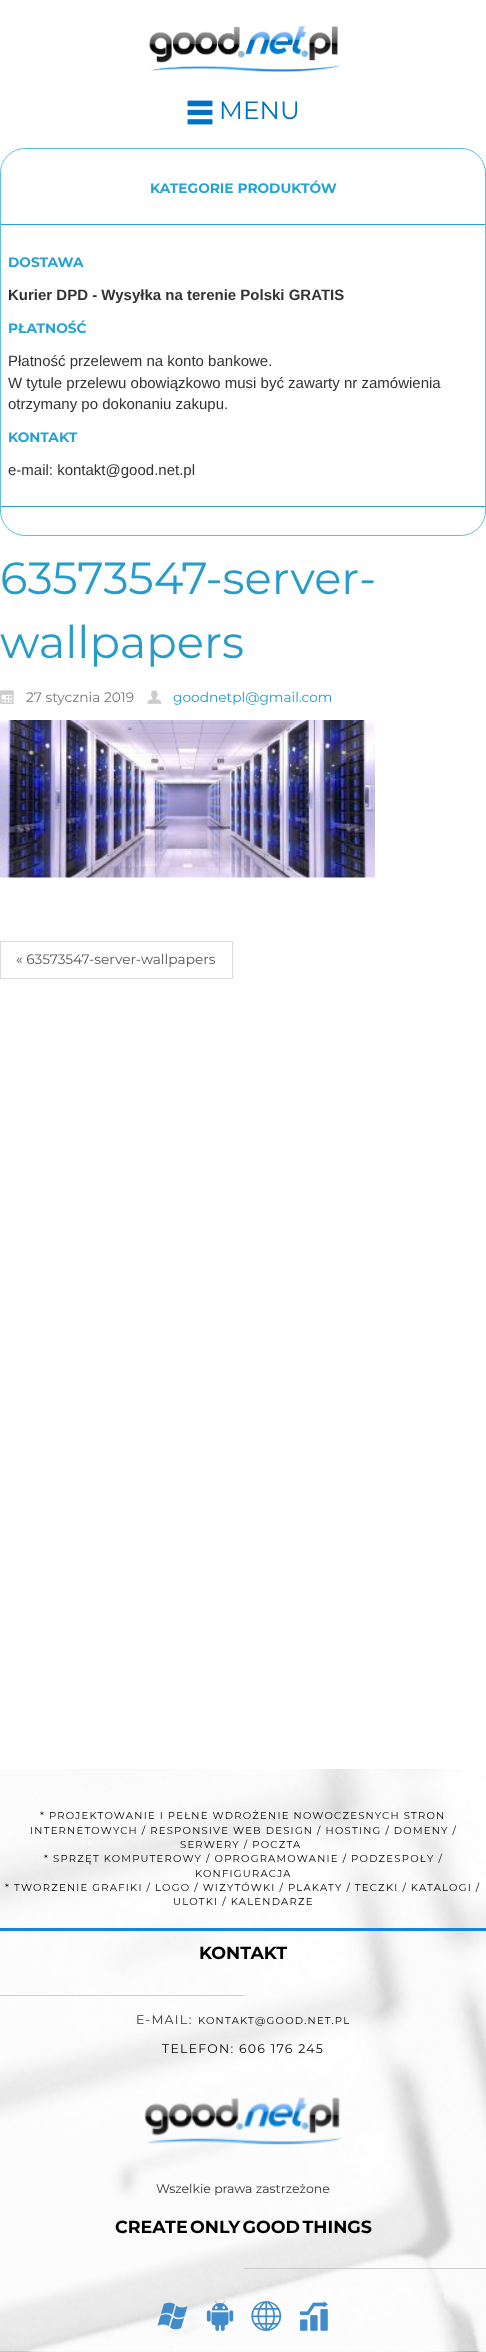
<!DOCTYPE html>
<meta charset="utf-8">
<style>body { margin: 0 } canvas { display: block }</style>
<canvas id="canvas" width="486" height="2352"></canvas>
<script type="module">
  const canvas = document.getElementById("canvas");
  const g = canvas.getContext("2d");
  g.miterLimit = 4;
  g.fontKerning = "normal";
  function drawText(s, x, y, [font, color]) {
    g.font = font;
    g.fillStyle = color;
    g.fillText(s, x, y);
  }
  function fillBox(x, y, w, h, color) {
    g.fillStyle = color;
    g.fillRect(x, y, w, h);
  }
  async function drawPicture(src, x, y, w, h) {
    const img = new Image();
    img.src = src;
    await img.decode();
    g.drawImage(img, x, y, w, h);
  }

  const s1 = ["25px Montserrat", "#0072C5"];
  const s2 = ["bold 13.75px Montserrat", "#27A2D2"];
  const s3 = ["bold 15px Liberation Sans", "#333333"];
  const s4 = ["15px Liberation Sans", "#333333"];
  const s5 = ["45px Montserrat", "#269CCB"];
  const s6 = ["13.75px Montserrat", "#777777"];
  const s7 = ["13.75px Montserrat", "#269CCB"];
  const s8 = ["13.75px Montserrat", "#555555"];
  const s9 = ["10px Montserrat", "#000000"];
  const s10 = ["bold 17.5px Montserrat", "#000000"];
  const s11 = ["12.5px Montserrat", "#333333"];
  const s12 = ["12.5px Montserrat", "#000000"];

  fillBox(0, 0, 486, 2352, "#FFFFFF");
  await drawPicture("pic1.png", 149, 26, 192, 46);
  await drawPicture("pic2.png", 187, 100, 26, 25);
  drawText("MENU", 219, 119, s1);
  g.beginPath();
  g.roundRect(0.5, 148.5, 485, 387, 24.5);
  g.strokeStyle = "#5BC0DE";
  g.stroke();
  drawText("KATEGORIE PRODUKTÓW", 150, 193, s2);
  fillBox(1, 224, 484, 1, "#27A2D2");
  drawText("DOSTAWA", 8, 267, s2);
  drawText("Kurier DPD - Wysyłka na terenie Polski GRATIS", 8, 300, s3);
  drawText("PŁATNOŚĆ", 8, 333, s2);
  drawText("Płatność przelewem na konto bankowe.", 8, 366, s4);
  drawText("W tytule przelewu obowiązkowo musi być zawarty nr zamówienia", 8, 388, s4);
  drawText("otrzymany po dokonaniu zakupu.", 8, 409, s4);
  drawText("KONTAKT", 8, 442, s2);
  drawText("e-mail: kontakt@good.net.pl", 8, 475, s4);
  fillBox(1, 506, 484, 1, "#27A2D2");
  drawText("63573547-server-", 0, 594, s5);
  drawText("wallpapers", 0, 658, s5);
  await drawPicture("pic3.png", 0, 690, 14, 14);
  drawText("27 stycznia 2019", 26, 702, s6);
  await drawPicture("pic4.png", 147, 690, 15, 14);
  drawText("goodnetpl@gmail.com", 173, 702, s7);
  await drawPicture("pic5.png", 0, 720, 375, 158);
  g.strokeStyle = "#DDDDDD";
  g.strokeRect(0.5, 941.5, 232, 37);
  drawText("« 63573547-server-wallpapers", 16, 964, s8);
  await drawPicture("pic6.png", 0, 1769, 486, 583);
  g.letterSpacing = "1.25px";
  drawText("* PROJEKTOWANIE I PEŁNE WDROŻENIE NOWOCZESNYCH STRON", 40, 1819, s9);
  drawText("INTERNETOWYCH / RESPONSIVE WEB DESIGN / HOSTING / DOMENY /", 30, 1834, s9);
  drawText("SERWERY / POCZTA", 180, 1848, s9);
  drawText("* SPRZĘT KOMPUTEROWY / OPROGRAMOWANIE / PODZESPOŁY /", 44, 1862, s9);
  drawText("KONFIGURACJA", 195, 1877, s9);
  drawText("* TWORZENIE GRAFIKI / LOGO / WIZYTÓWKI / PLAKATY / TECZKI / KATALOGI /", 5, 1891, s9);
  drawText("ULOTKI / KALENDARZE", 173, 1905, s9);
  fillBox(0, 1928, 486, 3, "#1285E2");
  g.letterSpacing = "0px";
  drawText("KONTAKT", 199, 1959, s10);
  fillBox(0, 1995, 244, 1, "#CCCCCC");
  g.letterSpacing = "1.25px";
  drawText("E-MAIL:", 136, 2024, s11);
  drawText("KONTAKT@GOOD.NET.PL", 198, 2024, s9);
  drawText("TELEFON: 606 176 245", 162, 2053, s12);
  await drawPicture("pic7.png", 144, 2097, 198, 48);
  g.letterSpacing = "0px";
  drawText("Wszelkie prawa zastrzeżone", 156, 2193, s11);
  g.wordSpacing = "-2.5px";
  drawText("CREATE ONLY GOOD THINGS", 115, 2233, s10);
  fillBox(244, 2268, 242, 1, "#CCCCCC");
  await drawPicture("pic8.png", 157, 2302, 31, 28);
  await drawPicture("pic9.png", 206, 2301, 28, 30);
  await drawPicture("pic10.png", 251, 2301, 31, 30);
  await drawPicture("pic11.png", 300, 2301, 28, 30);
</script>
